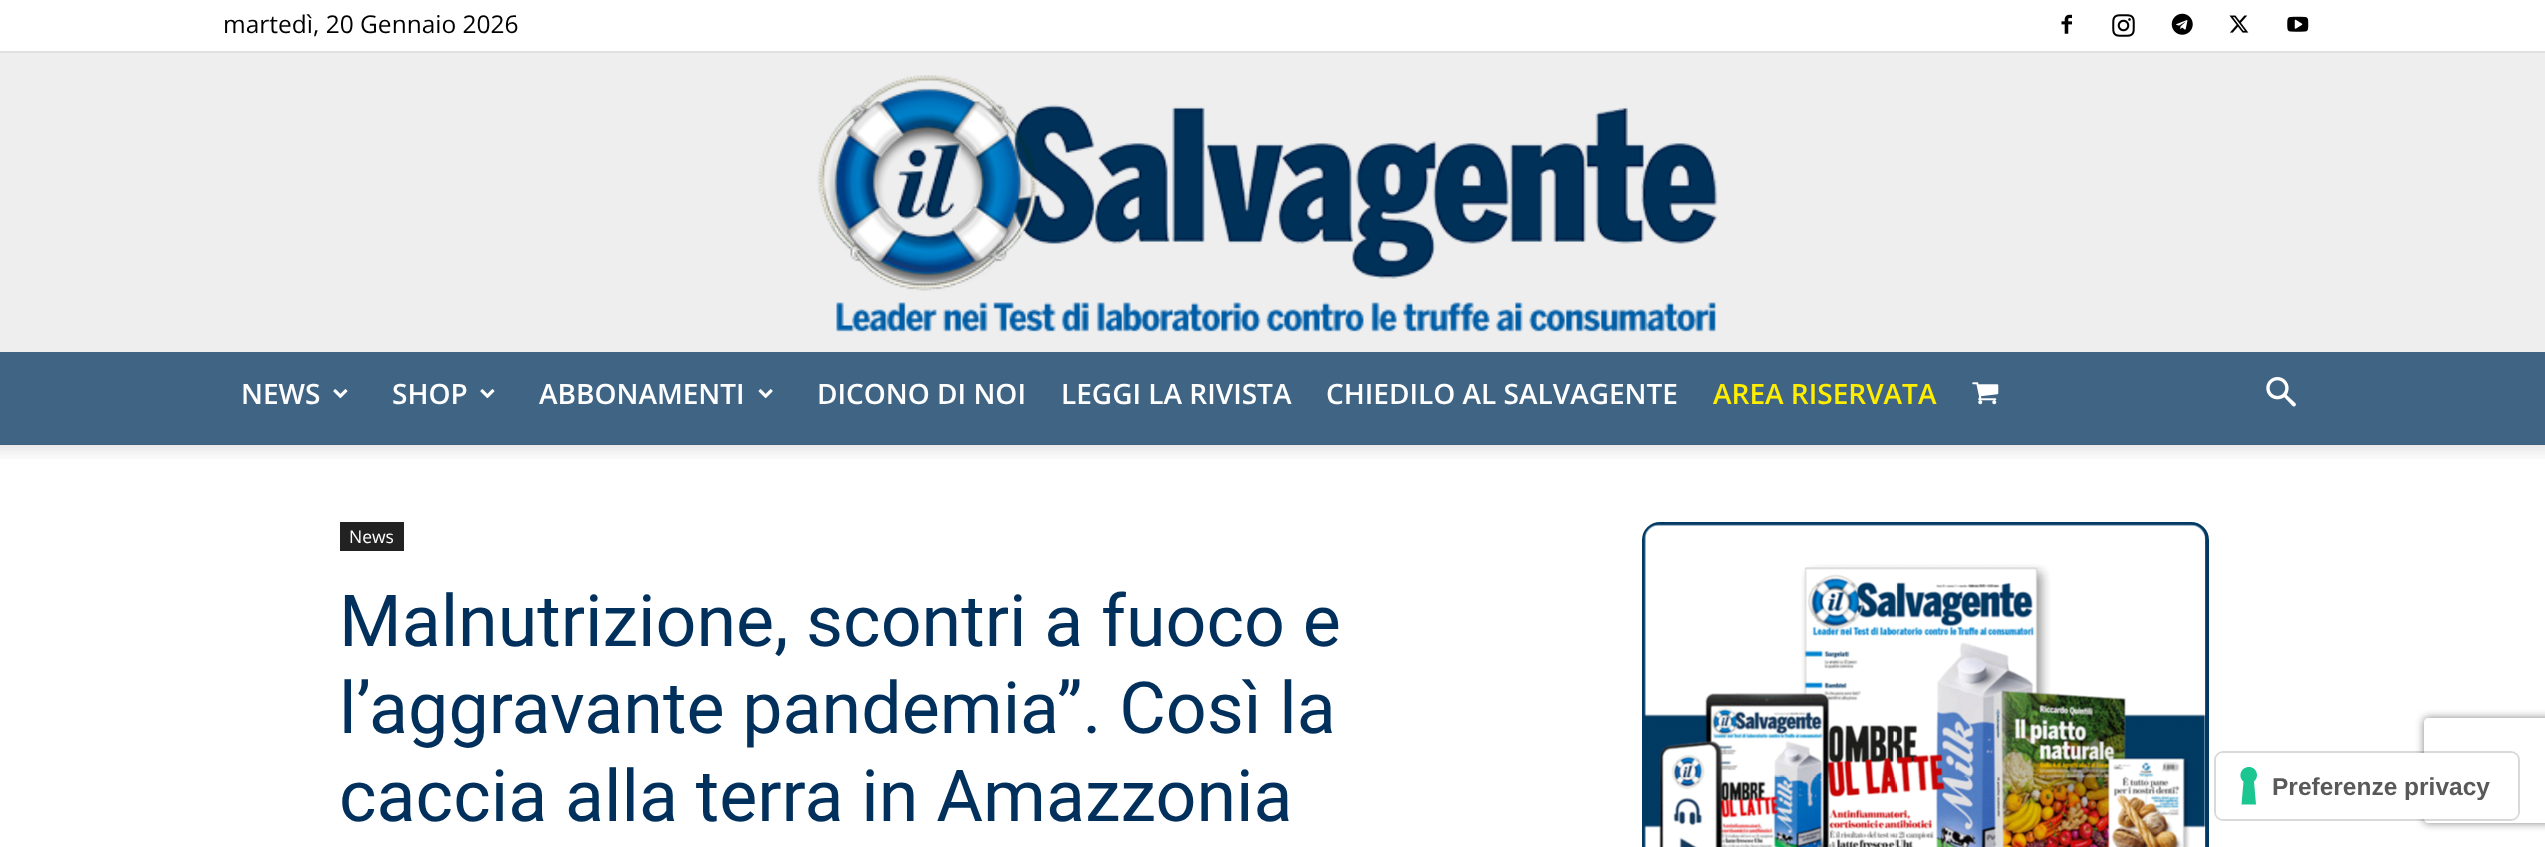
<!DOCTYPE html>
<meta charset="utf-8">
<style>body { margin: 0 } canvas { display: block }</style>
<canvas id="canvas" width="2545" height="847"></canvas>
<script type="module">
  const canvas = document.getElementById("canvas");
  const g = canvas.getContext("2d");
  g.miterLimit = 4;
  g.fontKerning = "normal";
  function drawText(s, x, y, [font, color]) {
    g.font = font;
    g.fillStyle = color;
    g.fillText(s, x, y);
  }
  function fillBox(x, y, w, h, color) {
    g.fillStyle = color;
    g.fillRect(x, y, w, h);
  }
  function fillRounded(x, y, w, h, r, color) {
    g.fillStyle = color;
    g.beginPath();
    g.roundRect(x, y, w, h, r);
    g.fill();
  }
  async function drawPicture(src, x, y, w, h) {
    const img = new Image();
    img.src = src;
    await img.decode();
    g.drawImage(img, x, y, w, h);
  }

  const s1 = ["24.5px Open Sans", "#000000"];
  const s2 = ["600 28px Open Sans", "#FFFFFF"];
  const s3 = ["600 28px Open Sans", "#FFEE00"];
  const s4 = ["17.5px Open Sans", "#FFFFFF"];
  const s5 = ["71.75px Roboto", "#00305B"];
  const s6 = ["bold 24.5px Liberation Sans", "#595959"];

  fillBox(0, 0, 2545, 847, "#FFFFFF");
  fillBox(0, 51, 2545, 2, "#E0E0E0");
  drawText("martedì, 20 Gennaio 2026", 223, 33, s1);
  await drawPicture("pic1.png", 2061, 14, 11, 20);
  await drawPicture("pic2.png", 2112, 14, 23, 23);
  await drawPicture("pic3.png", 2171, 13, 22, 22);
  await drawPicture("pic4.png", 2229, 15, 20, 18);
  await drawPicture("pic5.png", 2287, 16, 22, 16);
  fillBox(0, 53, 2545, 299, "#EEEEEE");
  await drawPicture("pic6.png", 817, 75, 901, 257);
  fillBox(0, 352, 2545, 93, "#406484");
  drawText("NEWS", 241, 404, s2);
  await drawPicture("pic7.png", 333, 389, 15, 10);
  drawText("SHOP", 392, 404, s2);
  await drawPicture("pic7.png", 480, 389, 15, 10);
  drawText("ABBONAMENTI", 539, 404, s2);
  await drawPicture("pic8.png", 758, 389, 15, 10);
  drawText("DICONO DI NOI", 817, 404, s2);
  drawText("LEGGI LA RIVISTA", 1061, 404, s2);
  drawText("CHIEDILO AL SALVAGENTE", 1326, 404, s2);
  drawText("AREA RISERVATA", 1713, 404, s3);
  await drawPicture("pic9.png", 1972, 382, 27, 23);
  await drawPicture("pic10.png", 2266, 377, 30, 30);
  await drawPicture("pic11.png", 0, 444, 2545, 15);
  fillBox(340, 522, 64, 29, "#222222");
  drawText("News", 349, 543, s4);
  drawText("Malnutrizione, scontri a fuoco e", 339, 646, s5);
  drawText("l’aggravante pandemia”. Così la", 339, 733, s5);
  drawText("caccia alla terra in Amazzonia", 339, 821, s5);
  g.beginPath();
  g.roundRect(1644, 524, 563, 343, 16);
  g.strokeStyle = "#003A64";
  g.lineWidth = 4;
  g.stroke();
  await drawPicture("pic12.png", 1644, 524, 562, 323);
  g.save();
  g.beginPath();
  g.moveTo(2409, 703);
  g.lineTo(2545, 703);
  g.lineTo(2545, 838);
  g.lineTo(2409, 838);
  g.closePath();
  g.moveTo(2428, 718);
  g.lineTo(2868, 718);
  g.bezierCurveTo(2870, 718, 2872, 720, 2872, 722);
  g.lineTo(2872, 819);
  g.bezierCurveTo(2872, 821, 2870, 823, 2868, 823);
  g.lineTo(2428, 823);
  g.bezierCurveTo(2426, 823, 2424, 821, 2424, 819);
  g.lineTo(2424, 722);
  g.bezierCurveTo(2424, 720, 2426, 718, 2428, 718);
  g.closePath();
  g.clip("evenodd");
  g.fillStyle = "#808080";
  g.filter = "blur(4.5px)";
  g.beginPath();
  g.roundRect(2424, 718, 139, 105, 4);
  g.fill();
  g.filter = "none";
  g.restore();
  g.beginPath();
  g.roundRect(2215, 752, 304, 68, 8);
  g.strokeStyle = "rgba(0, 0, 0, 0.15)";
  g.lineWidth = 2;
  g.stroke();
  fillRounded(2216, 753, 302, 66, 7, "#FFFFFF");
  g.fillStyle = "#1CC691";
  g.beginPath();
  g.moveTo(2249, 767);
  g.bezierCurveTo(2256.5, 767, 2260, 776.5, 2254, 781.5);
  g.lineTo(2256, 804.5);
  g.lineTo(2241.5, 804.5);
  g.lineTo(2243.5, 781.5);
  g.bezierCurveTo(2237.5, 776.5, 2241, 767, 2249, 767);
  g.closePath();
  g.fill("evenodd");
  drawText("Preferenze privacy", 2272, 795, s6);
</script>
